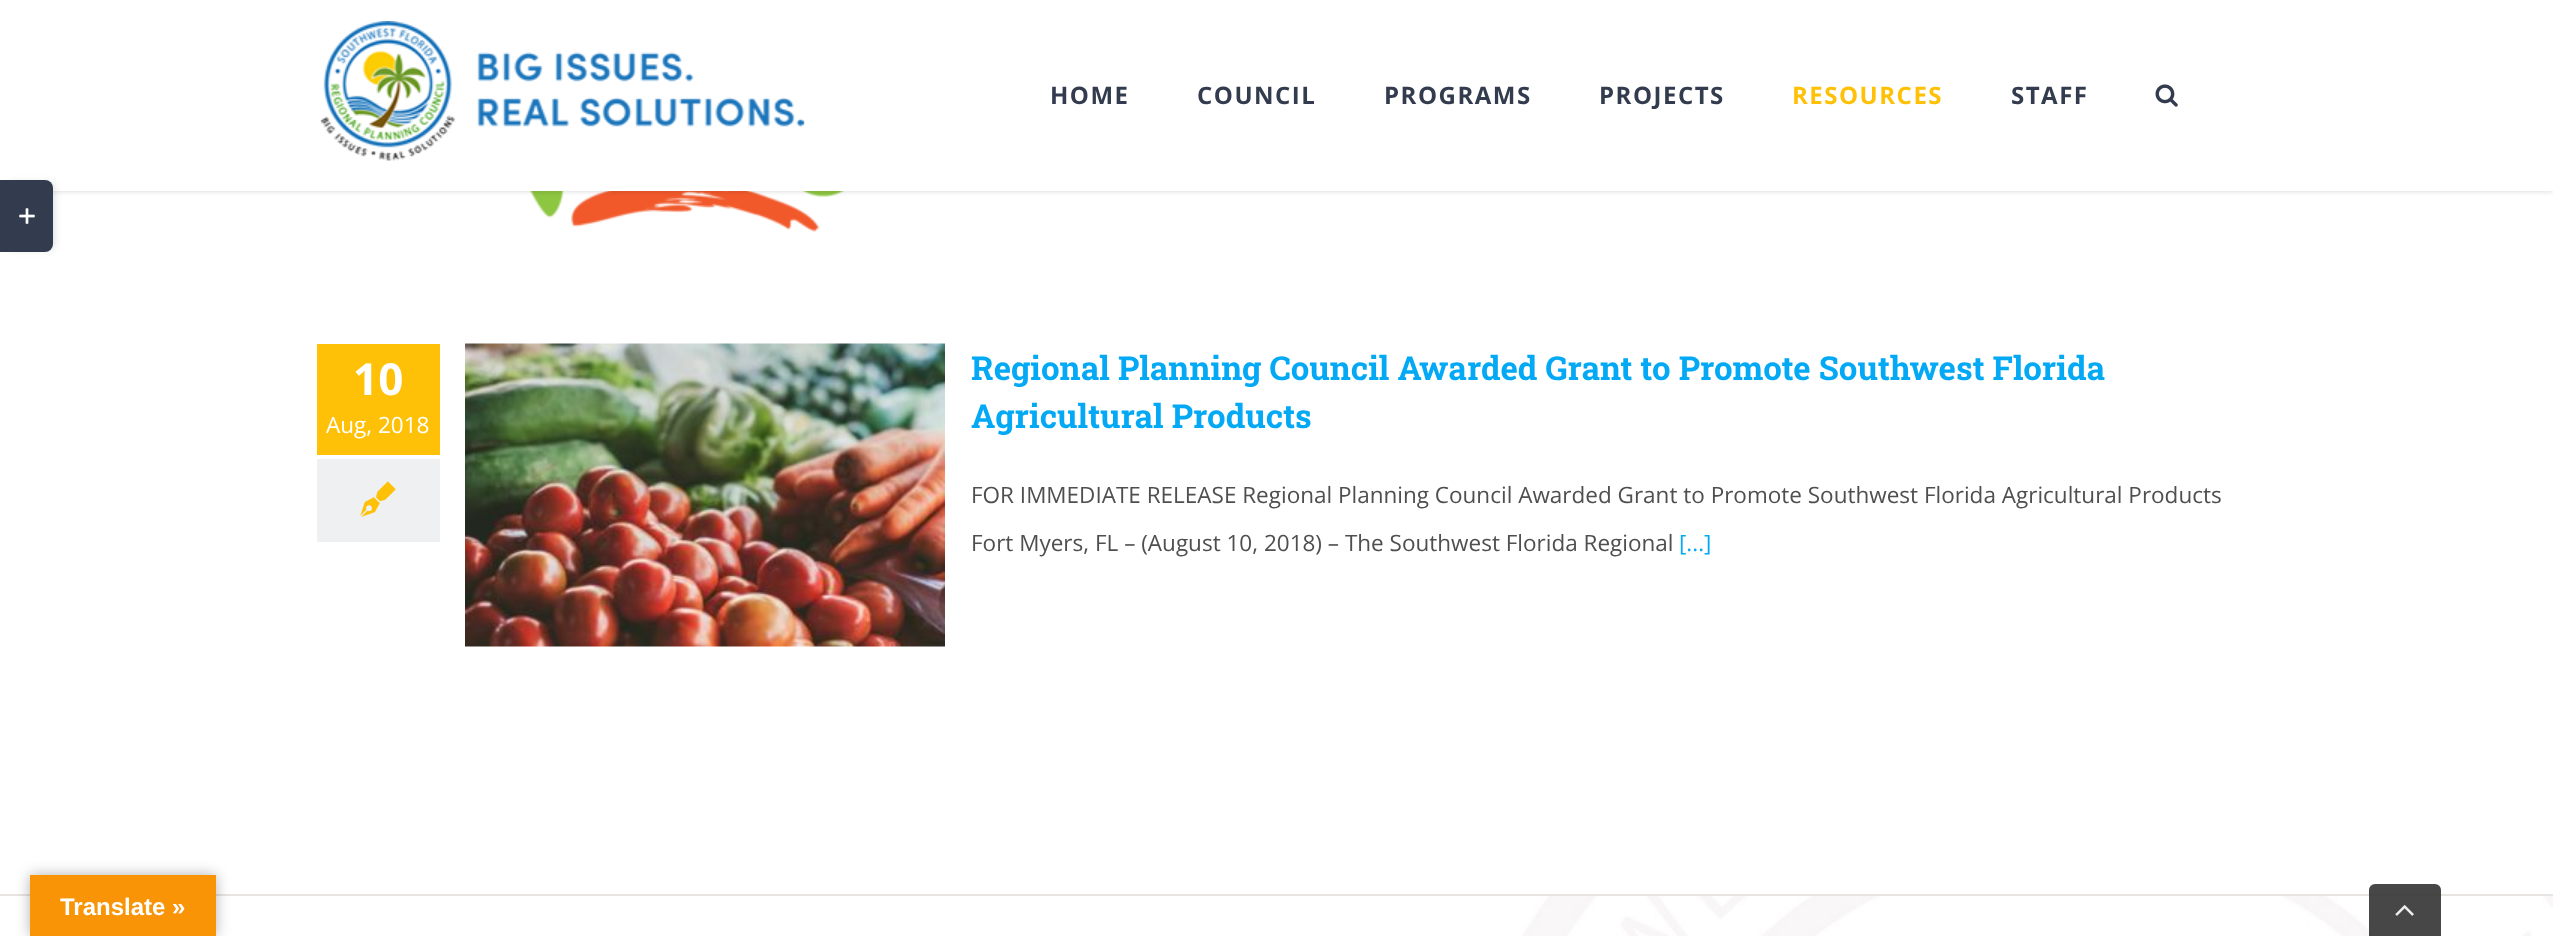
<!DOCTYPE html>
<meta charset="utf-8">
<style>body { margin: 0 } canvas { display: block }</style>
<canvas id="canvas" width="2553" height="936"></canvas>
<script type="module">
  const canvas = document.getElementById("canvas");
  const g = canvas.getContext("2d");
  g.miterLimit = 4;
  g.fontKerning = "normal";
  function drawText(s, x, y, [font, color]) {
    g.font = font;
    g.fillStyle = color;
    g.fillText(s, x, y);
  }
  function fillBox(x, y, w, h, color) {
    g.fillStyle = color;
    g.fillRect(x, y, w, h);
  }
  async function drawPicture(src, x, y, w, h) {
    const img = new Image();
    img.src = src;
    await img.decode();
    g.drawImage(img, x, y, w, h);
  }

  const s1 = ["bold 24px Open Sans", "#333C4E"];
  const s2 = ["bold 24px Open Sans", "#FFC107"];
  const s3 = ["bold 44px Open Sans", "#FFFFFF"];
  const s4 = ["22.5px Open Sans", "#FFFFFF"];
  const s5 = ["bold 33px Roboto Slab", "#03A9F4"];
  const s6 = ["22.5px Open Sans", "#4F4F4F"];
  const s7 = ["22.5px Open Sans", "#03A9F4"];
  const s8 = ["bold 24px Liberation Sans", "#FFFFFF"];

  fillBox(0, 0, 2553, 936, "#FFFFFF");
  await drawPicture("pic4.png", 529, 191, 316, 41);
  g.fillStyle = "rgba(0, 0, 0, 0.12)";
  g.filter = "blur(2px)";
  g.beginPath();
  g.rect(0, 2, 2553, 190);
  g.fill();
  g.filter = "none";
  fillBox(0, 0, 2553, 191, "#FFFFFF");
  await drawPicture("pic1.png", 320, 21, 485, 140);
  g.letterSpacing = "1.5px";
  drawText("HOME", 1050, 104, s1);
  drawText("COUNCIL", 1197, 104, s1);
  drawText("PROGRAMS", 1384, 104, s1);
  drawText("PROJECTS", 1599, 104, s1);
  drawText("RESOURCES", 1792, 104, s2);
  drawText("STAFF", 2011, 104, s1);
  await drawPicture("pic2.png", 2155, 84, 23, 23);
  g.fillStyle = "rgba(0, 0, 0, 0.14)";
  g.filter = "blur(4px)";
  g.beginPath();
  g.roundRect(8, 183, 46, 66, 5);
  g.fill();
  g.filter = "none";
  g.fillStyle = "#333C4E";
  g.beginPath();
  g.roundRect(0, 180, 53, 72, [0, 8, 8, 0]);
  g.fill();
  await drawPicture("pic3.png", 19, 208, 16, 16);
  fillBox(317, 344, 123, 111, "#FFC107");
  g.letterSpacing = "0px";
  drawText("10", 353, 395, s3);
  drawText("Aug, 2018", 326, 433, s4);
  fillBox(317, 459, 123, 83, "#EEF0F2");
  await drawPicture("pic5.png", 360, 481, 36, 36);
  await drawPicture("pic6.png", 465, 343, 480, 304);
  drawText("Regional Planning Council Awarded Grant to Promote Southwest Florida", 971, 380, s5);
  drawText("Agricultural Products", 971, 428, s5);
  drawText("FOR IMMEDIATE RELEASE Regional Planning Council Awarded Grant to Promote Southwest Florida Agricultural Products", 971, 503, s6);
  drawText("Fort Myers, FL – (August 10, 2018) – The Southwest Florida Regional", 971, 551, s6);
  drawText("[...]", 1679, 551, s7);
  await drawPicture("pic7.png", 1522, 896, 1031, 40);
  fillBox(0, 894, 2553, 2, "#E7E4E2");
  g.fillStyle = "rgba(0, 0, 0, 0.3)";
  g.filter = "blur(7px)";
  g.beginPath();
  g.rect(30, 875, 186, 61);
  g.fill();
  g.filter = "none";
  fillBox(30, 875, 186, 61, "#F89406");
  drawText("Translate »", 60, 915, s8);
  g.fillStyle = "rgba(51, 51, 51, 0.9)";
  g.beginPath();
  g.roundRect(2369, 884, 72, 52, [6, 6, 0, 0]);
  g.fill();
  await drawPicture("pic8.png", 2395, 905, 19, 11);
</script>
